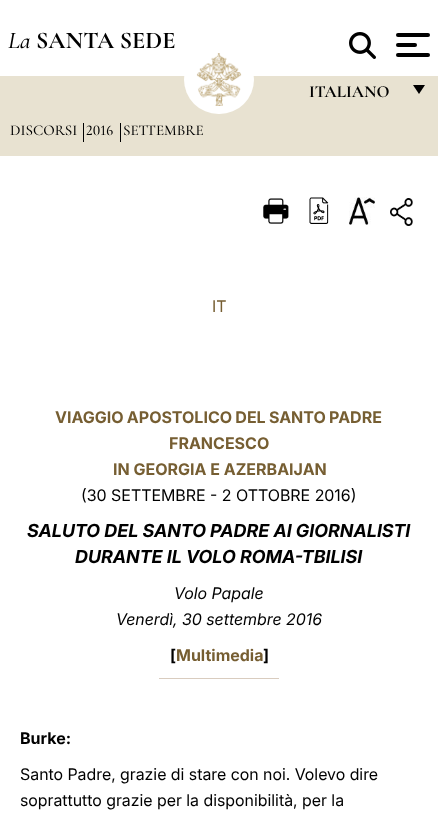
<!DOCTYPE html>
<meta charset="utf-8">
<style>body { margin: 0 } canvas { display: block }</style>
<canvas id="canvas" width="438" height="818"></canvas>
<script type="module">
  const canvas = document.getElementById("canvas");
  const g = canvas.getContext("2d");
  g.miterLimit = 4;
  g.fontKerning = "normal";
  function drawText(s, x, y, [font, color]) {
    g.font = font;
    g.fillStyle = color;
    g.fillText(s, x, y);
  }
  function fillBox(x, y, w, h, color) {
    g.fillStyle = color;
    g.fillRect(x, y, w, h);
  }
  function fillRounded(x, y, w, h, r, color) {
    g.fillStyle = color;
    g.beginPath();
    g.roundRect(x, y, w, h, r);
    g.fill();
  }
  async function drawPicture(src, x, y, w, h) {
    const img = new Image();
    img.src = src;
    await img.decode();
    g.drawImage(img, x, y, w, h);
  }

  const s1 = ["italic 500 24px Cormorant Garamond", "#000000"];
  const s2 = ["bold 24px Cormorant Garamond", "#000000"];
  const s3 = ["bold 17px Cormorant Garamond", "#000000"];
  const s4 = ["500 15px Cormorant Garamond", "#000000"];
  const s5 = ["500 15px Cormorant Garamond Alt", "#000000"];
  const s6 = ["16px Inter", "#765E32"];
  const s7 = ["bold 16px Inter", "#765E32"];
  const s8 = ["16px Inter", "#000000"];
  const s9 = ["italic bold 18px Inter", "#000000"];
  const s10 = ["italic 16px Inter", "#000000"];
  const s11 = ["bold 16px Inter", "#000000"];

  fillBox(0, 0, 438, 818, "#FFFFFF");
  drawText("La", 8, 48, s1);
  drawText("SANTA SEDE", 36, 48, s2);
  fillBox(0, 76, 438, 80, "#E8E2D1");
  fillRounded(184, 45, 70, 69, 34.5, "#FFFFFF");
  await drawPicture("pic1.png", 196, 53, 46, 53);
  await drawPicture("pic2.png", 349, 32, 27, 27);
  fillRounded(396, 33, 34, 4, 2, "#000000");
  fillRounded(396, 43, 21, 4, 2, "#000000");
  fillRounded(396, 53, 34, 4, 2, "#000000");
  drawText("ITALIANO", 309, 97, s3);
  g.beginPath();
  g.moveTo(413, 85);
  g.lineTo(425, 85);
  g.lineTo(419, 94);
  g.closePath();
  g.fill();
  drawText("DISCORSI", 10, 135, s4);
  fillBox(83, 123, 1, 19, "#000000");
  drawText("2016", 86, 135, s5);
  fillBox(120, 123, 1, 19, "#000000");
  drawText("SETTEMBRE", 123, 135, s4);
  await drawPicture("pic3.png", 263, 198, 26, 26);
  await drawPicture("pic4.png", 309, 197, 20, 27);
  await drawPicture("pic5.png", 349, 197, 26, 28);
  await drawPicture("pic6.png", 390, 198, 23, 28);
  drawText("IT", 212, 312, s6);
  g.wordSpacing = "-0.5px";
  drawText("VIAGGIO APOSTOLICO DEL SANTO PADRE", 55, 423, s7);
  g.wordSpacing = "0px";
  drawText("FRANCESCO", 169, 449, s7);
  drawText("IN GEORGIA E AZERBAIJAN", 113, 475, s7);
  drawText("(30 SETTEMBRE - 2 OTTOBRE 2016)", 81, 501, s8);
  drawText("SALUTO DEL SANTO PADRE AI GIORNALISTI", 27, 537, s9);
  drawText("DURANTE IL VOLO ROMA-TBILISI", 75, 563, s9);
  drawText("Volo Papale", 174, 599, s10);
  drawText("Venerdì, 30 settembre 2016", 116, 625, s10);
  drawText("[", 170, 661, s11);
  drawText("Multimedia", 176, 661, s7);
  drawText("]", 263, 661, s11);
  fillBox(159, 678, 120, 1, "#D9CCBF");
  drawText("Burke:", 20, 744, s11);
  drawText("Santo Padre, grazie di stare con noi. Volevo dire", 20, 780, s8);
  drawText("soprattutto grazie per la disponibilità, per la", 20, 806, s8);
</script>
